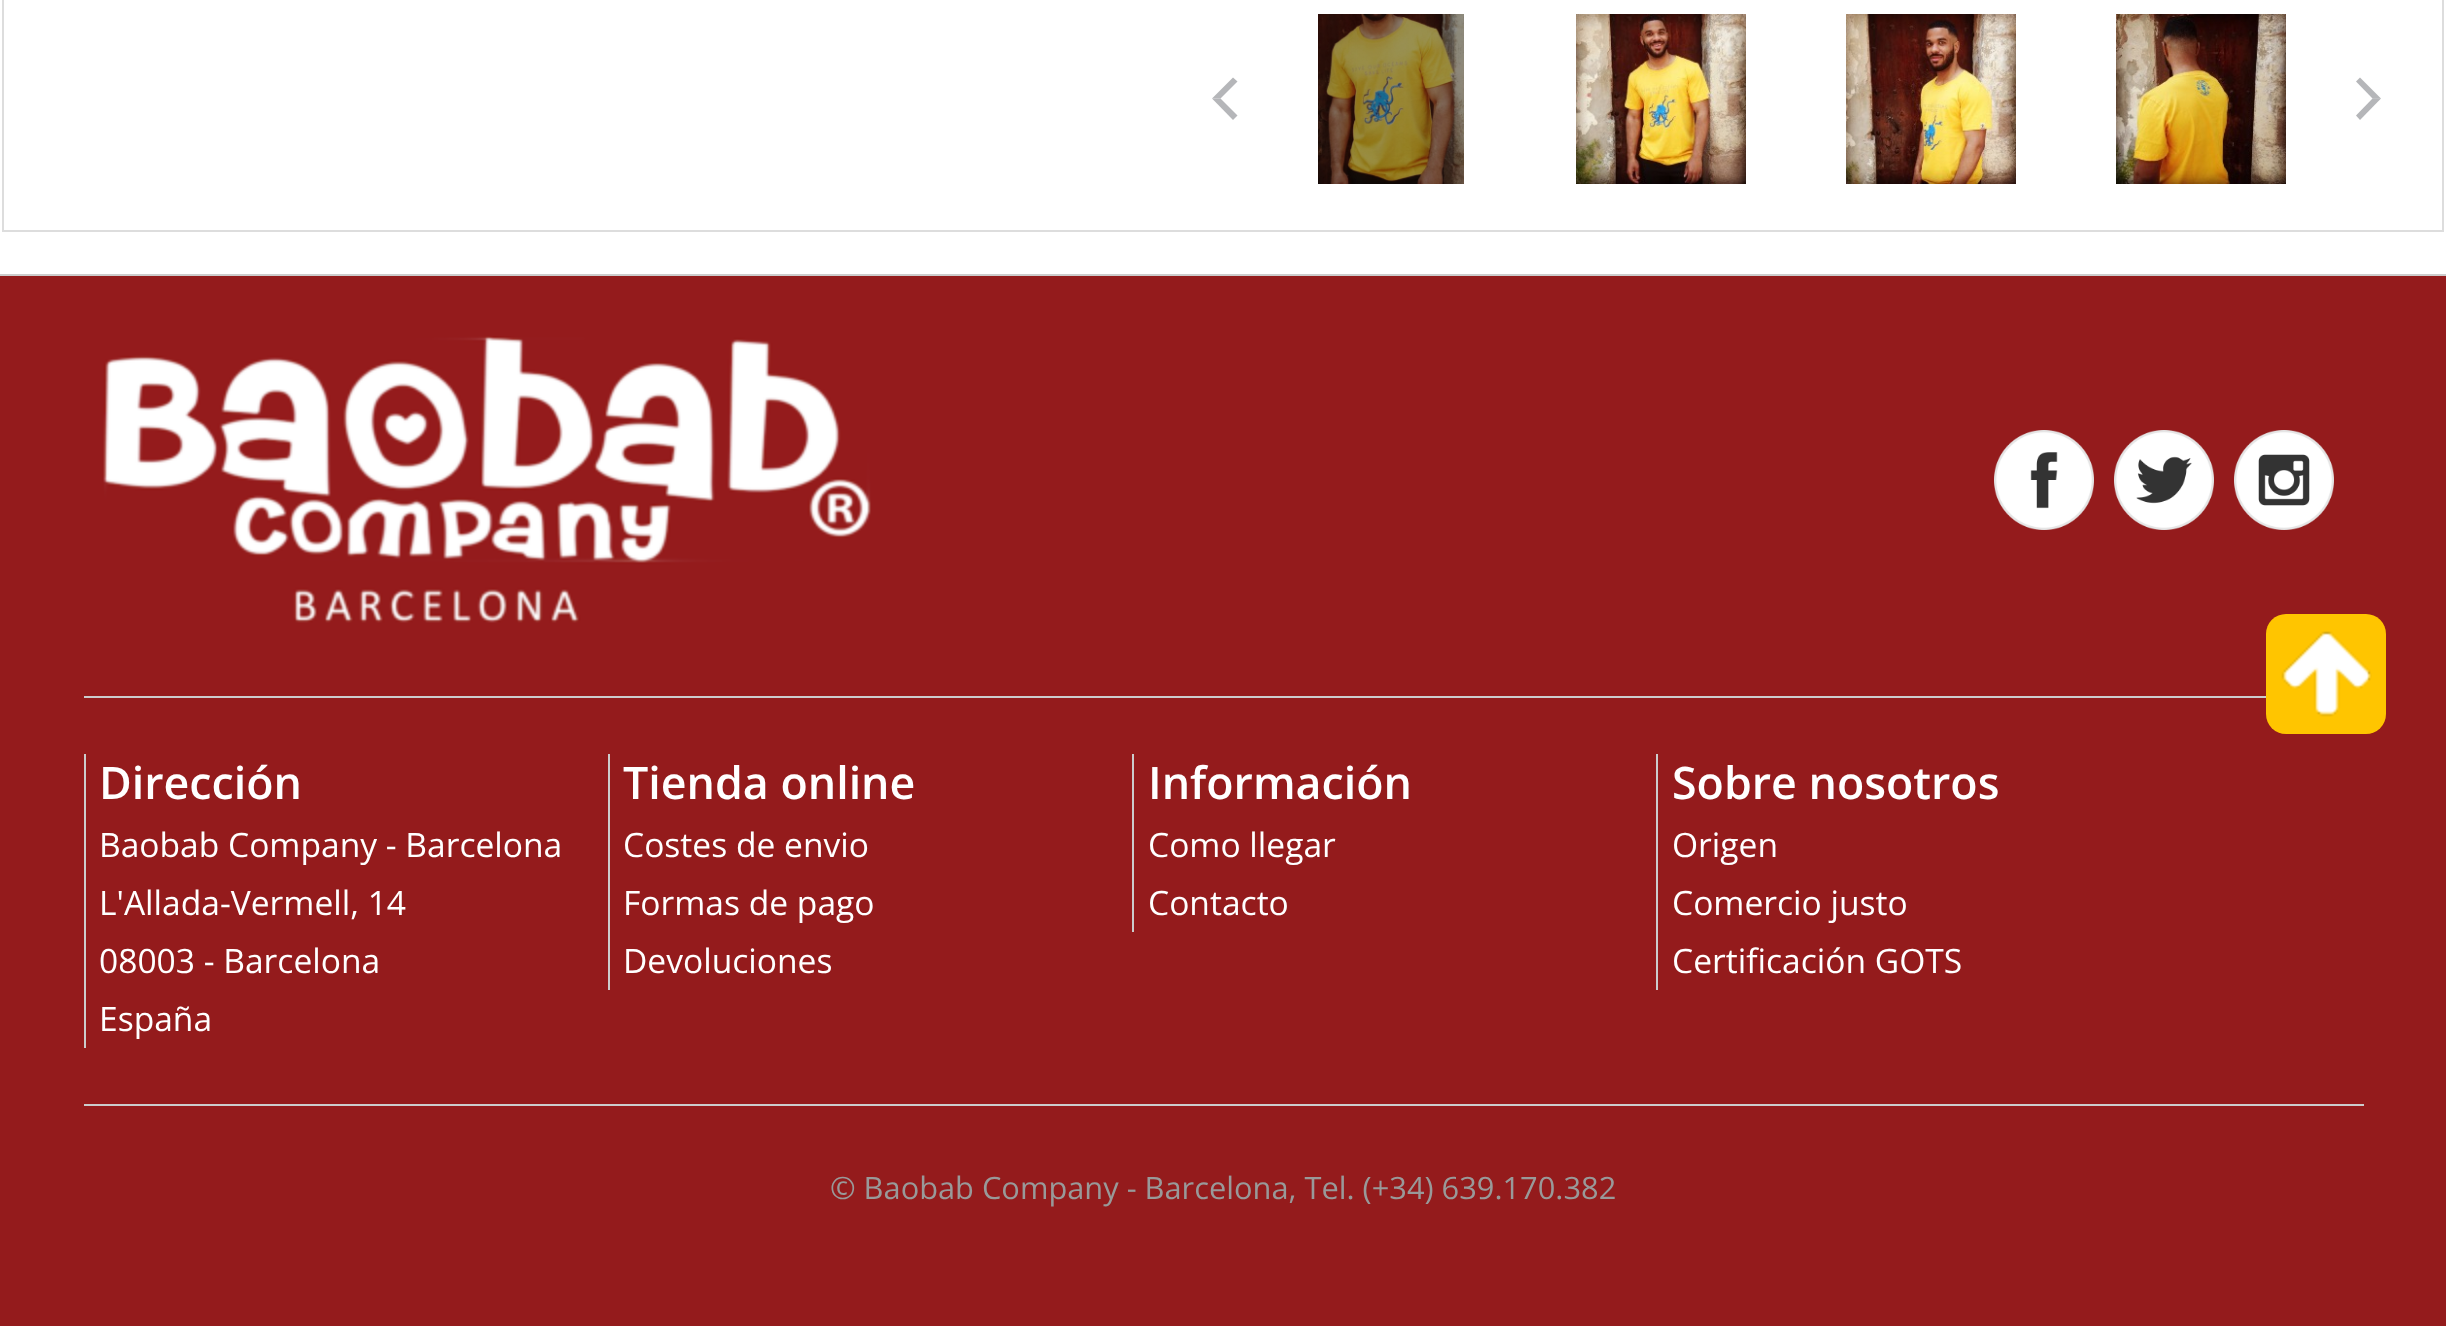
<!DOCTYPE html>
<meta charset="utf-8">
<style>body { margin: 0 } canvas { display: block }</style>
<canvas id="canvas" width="2446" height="1333"></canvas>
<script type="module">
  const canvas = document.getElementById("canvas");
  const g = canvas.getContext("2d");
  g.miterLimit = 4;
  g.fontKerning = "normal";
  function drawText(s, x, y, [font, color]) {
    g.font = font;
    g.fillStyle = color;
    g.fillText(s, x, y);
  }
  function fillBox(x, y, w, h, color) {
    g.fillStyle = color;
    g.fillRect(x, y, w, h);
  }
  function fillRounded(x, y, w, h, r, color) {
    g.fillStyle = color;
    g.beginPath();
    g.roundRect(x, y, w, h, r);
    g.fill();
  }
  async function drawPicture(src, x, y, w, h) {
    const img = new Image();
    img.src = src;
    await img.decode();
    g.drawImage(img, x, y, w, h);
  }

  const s1 = ["600 44.75px Open Sans", "#FFFFFF"];
  const s2 = ["33.6px Open Sans", "#FFFFFF"];
  const s3 = ["30.8px Open Sans", "#999999"];

  fillBox(0, 0, 2446, 1333, "#FFFFFF");
  g.strokeStyle = "#DDDDDD";
  g.lineWidth = 2;
  g.strokeRect(3, -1, 2440, 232);
  g.fillStyle = "#B5B6B9";
  g.beginPath();
  g.moveTo(1212, 98.5);
  g.lineTo(1233, 77.5);
  g.lineTo(1237.5, 81.5);
  g.lineTo(1220.5, 98.5);
  g.closePath();
  g.fill();
  g.beginPath();
  g.moveTo(1233, 120);
  g.lineTo(1212, 98.5);
  g.lineTo(1220.5, 98.5);
  g.lineTo(1237.5, 115.5);
  g.closePath();
  g.fill();
  await drawPicture("pic1.png", 1318, 14, 146, 170);
  await drawPicture("pic2.png", 1576, 14, 170, 170);
  await drawPicture("pic3.png", 1846, 14, 170, 170);
  await drawPicture("pic4.png", 2116, 14, 170, 170);
  g.beginPath();
  g.moveTo(2381, 98.5);
  g.lineTo(2360, 120);
  g.lineTo(2356, 115.5);
  g.lineTo(2372.5, 98.5);
  g.closePath();
  g.fill();
  g.fillStyle = "rgba(131, 133, 139, 0.6)";
  g.beginPath();
  g.moveTo(2360, 77.5);
  g.lineTo(2381, 98.5);
  g.lineTo(2372.5, 98.5);
  g.lineTo(2356, 81.5);
  g.closePath();
  g.fill();
  fillBox(0, 276, 2446, 1050, "#941B1C");
  fillRounded(2266, 614, 120, 120, 20, "#FFC500");
  await drawPicture("pic5.png", 2281, 631, 91, 86);
  fillBox(0, 274, 2446, 2, "#CCCCCC");
  fillBox(84, 696, 2182, 2, "#CCCCCC");
  await drawPicture("pic6.png", 103, 336, 768, 287);
  await drawPicture("pic7.png", 1994, 430, 100, 100);
  await drawPicture("pic8.png", 2114, 430, 100, 100);
  await drawPicture("pic9.png", 2234, 430, 100, 100);
  fillBox(84, 1104, 2280, 2, "#CCCCCC");
  fillBox(84, 754, 2, 294, "#CCCCCC");
  drawText("Dirección", 99, 799, s1);
  fillBox(608, 754, 2, 236, "#CCCCCC");
  drawText("Tienda online", 623, 799, s1);
  fillBox(1132, 754, 2, 178, "#CCCCCC");
  drawText("Información", 1148, 799, s1);
  fillBox(1656, 754, 2, 236, "#CCCCCC");
  drawText("Sobre nosotros", 1672, 799, s1);
  drawText("Baobab Company - Barcelona", 99, 857, s2);
  drawText("Costes de envio", 623, 857, s2);
  drawText("Como llegar", 1148, 857, s2);
  drawText("Origen", 1672, 857, s2);
  drawText("L'Allada-Vermell, 14", 99, 915, s2);
  drawText("Formas de pago", 623, 915, s2);
  drawText("Contacto", 1148, 915, s2);
  drawText("Comercio justo", 1672, 915, s2);
  drawText("08003 - Barcelona", 99, 973, s2);
  drawText("Devoluciones", 623, 973, s2);
  drawText("Certificación GOTS", 1672, 973, s2);
  drawText("España", 99, 1031, s2);
  drawText("© Baobab Company - Barcelona, Tel. (+34) 639.170.382", 830, 1199, s3);
</script>
